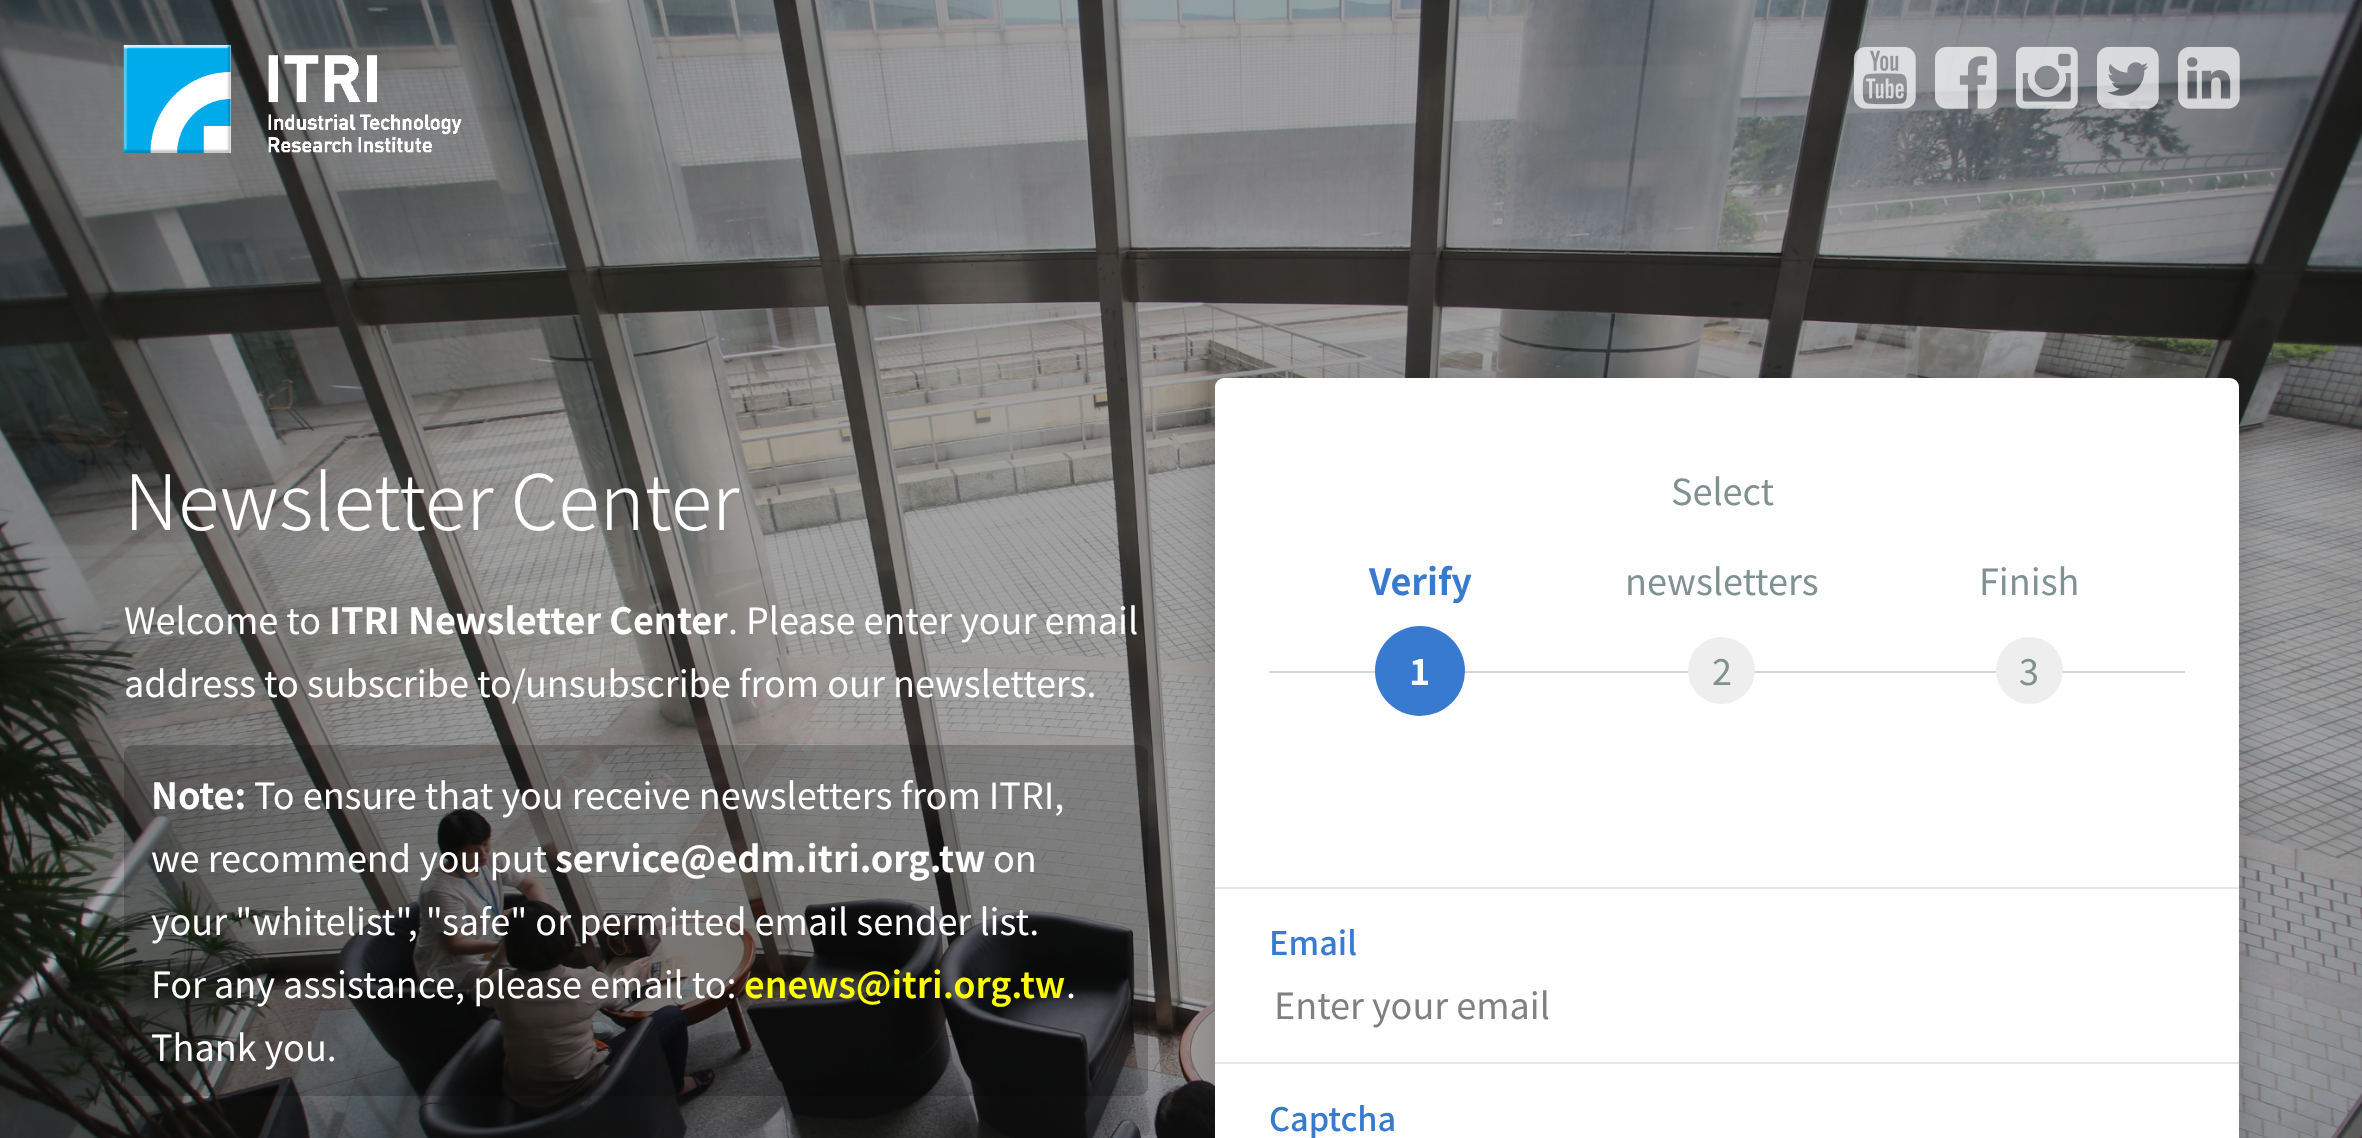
<!DOCTYPE html>
<meta charset="utf-8">
<style>body { margin: 0 } canvas { display: block }</style>
<canvas id="canvas" width="2362" height="1138"></canvas>
<script type="module">
  const canvas = document.getElementById("canvas");
  const g = canvas.getContext("2d");
  g.miterLimit = 4;
  g.fontKerning = "normal";
  function drawText(s, x, y, [font, color]) {
    g.font = font;
    g.fillStyle = color;
    g.fillText(s, x, y);
  }
  function fillBox(x, y, w, h, color) {
    g.fillStyle = color;
    g.fillRect(x, y, w, h);
  }
  function fillRounded(x, y, w, h, r, color) {
    g.fillStyle = color;
    g.beginPath();
    g.roundRect(x, y, w, h, r);
    g.fill();
  }
  async function drawPicture(src, x, y, w, h) {
    const img = new Image();
    img.src = src;
    await img.decode();
    g.drawImage(img, x, y, w, h);
  }

  const s1 = ["300 76.5px Noto Sans TC", "#FFFFFF"];
  const s2 = ["36px Noto Sans TC", "#FFFFFF"];
  const s3 = ["bold 36px Noto Sans TC", "#FFFFFF"];
  const s4 = ["600 36px Noto Sans TC", "#FFFF00"];
  const s5 = ["bold 36px Noto Sans TC", "#387AD0"];
  const s6 = ["36px Noto Sans TC", "#809191"];
  const s7 = ["500 32.5px Noto Sans TC", "#387AD0"];
  const s8 = ["36px Noto Sans TC", "#808080"];

  fillBox(0, 0, 2362, 1138, "#141414");
  await drawPicture("pic1.png", 0, 0, 2362, 1138);
  await drawPicture("pic2.png", 123, 45, 339, 108);
  await drawPicture("pic3.png", 1854, 46, 62, 63);
  await drawPicture("pic4.png", 1935, 46, 62, 63);
  await drawPicture("pic5.png", 2016, 46, 62, 63);
  await drawPicture("pic6.png", 2097, 46, 62, 63);
  await drawPicture("pic7.png", 2178, 46, 62, 63);
  drawText("Newsletter Center", 124, 530, s1);
  drawText("Welcome to", 124, 634, s2);
  drawText("ITRI Newsletter Center", 329, 634, s3);
  drawText(". Please enter your email", 728, 634, s2);
  drawText("address to subscribe to/unsubscribe from our newsletters.", 124, 697, s2);
  fillRounded(124, 745, 1024, 351, 9, "rgba(0, 0, 0, 0.2)");
  drawText("Note:", 151, 809, s3);
  drawText("To ensure that you receive newsletters from ITRI,", 254, 809, s2);
  drawText("we recommend you put", 151, 872, s2);
  drawText("service@edm.itri.org.tw", 555, 872, s3);
  drawText("on", 993, 872, s2);
  drawText("your \"whitelist\", \"safe\" or permitted email sender list.", 151, 935, s2);
  drawText("For any assistance, please email to:", 151, 998, s2);
  drawText("enews@itri.org.tw", 744, 998, s4);
  drawText(".", 1066, 998, s2);
  drawText("Thank you.", 151, 1061, s2);
  g.fillStyle = "rgba(0, 0, 0, 0.2)";
  g.filter = "blur(20px)";
  g.beginPath();
  g.roundRect(1215, 378, 1024, 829, 9);
  g.fill();
  g.filter = "none";
  fillRounded(1215, 378, 1024, 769, 9, "#FFFFFF");
  fillBox(1269, 671, 916, 2, "#D2D8D8");
  drawText("Verify", 1369, 595, s5);
  g.beginPath();
  g.arc(1420, 671, 45, 0, Math.PI * 2);
  g.fill();
  drawText("1", 1409, 685, s3);
  drawText("Select", 1671, 505, s6);
  drawText("newsletters", 1625, 595, s6);
  g.fillStyle = "#EEEEEE";
  g.beginPath();
  g.arc(1721.5, 670.5, 33.5, 0, Math.PI * 2);
  g.fill();
  drawText("2", 1712, 685, s6);
  drawText("Finish", 1979, 595, s6);
  g.fillStyle = "#EEEEEE";
  g.beginPath();
  g.arc(2029.5, 670.5, 33.5, 0, Math.PI * 2);
  g.fill();
  drawText("3", 2019, 685, s6);
  fillBox(1215, 887, 1024, 2, "#E5E5E5");
  drawText("Email", 1269, 955, s7);
  drawText("Enter your email", 1274, 1019, s8);
  fillBox(1215, 1062, 1024, 2, "#E5E5E5");
  drawText("Captcha", 1269, 1131, s7);
</script>
